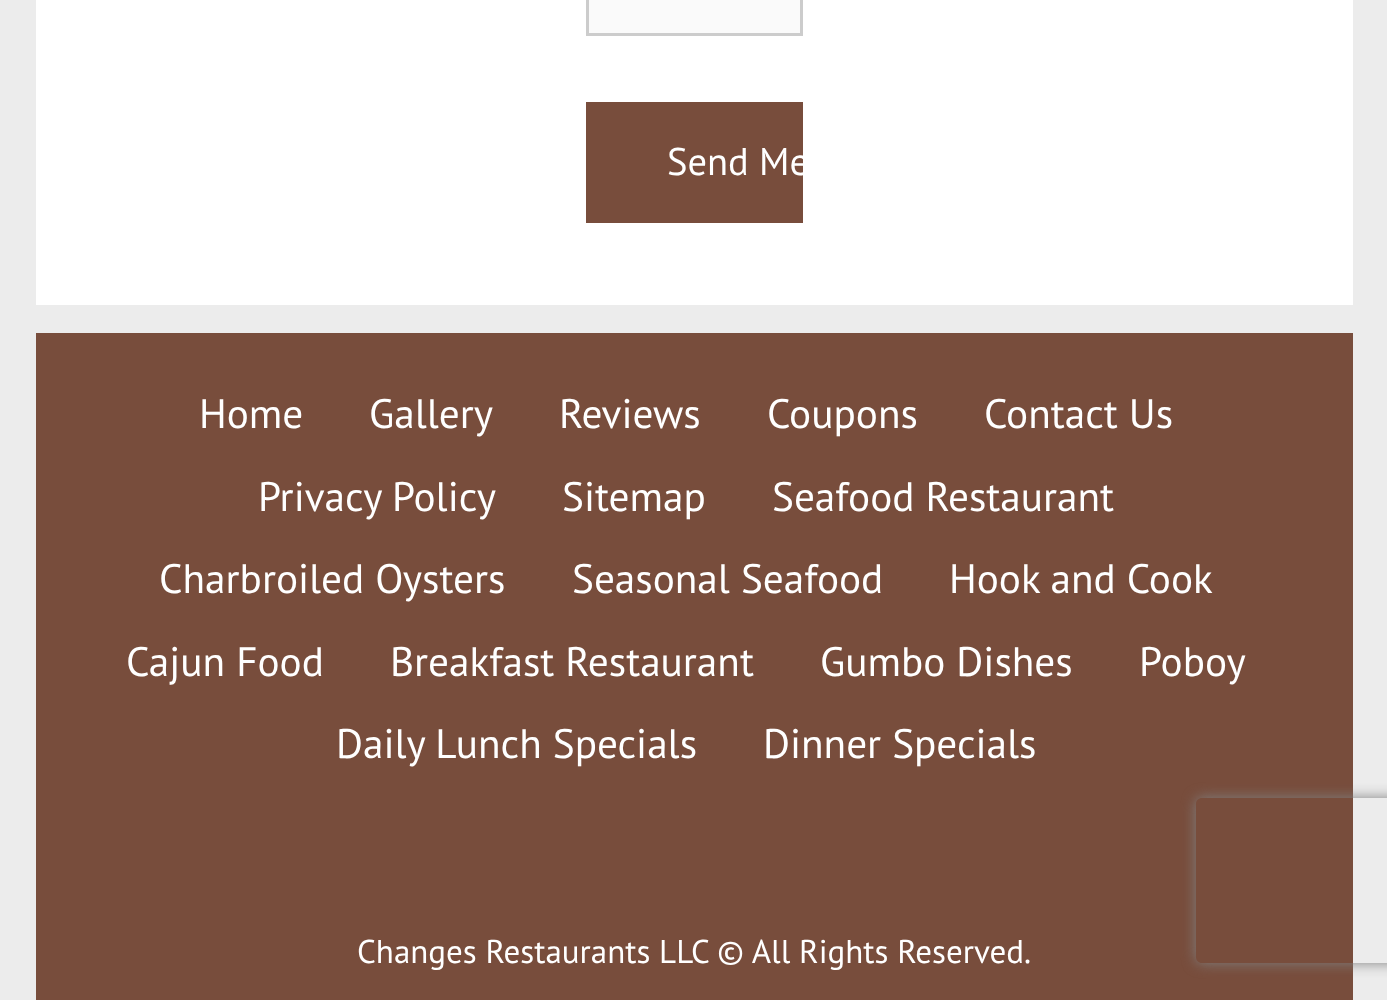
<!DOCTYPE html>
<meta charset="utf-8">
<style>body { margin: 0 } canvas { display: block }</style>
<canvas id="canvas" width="1387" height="1000"></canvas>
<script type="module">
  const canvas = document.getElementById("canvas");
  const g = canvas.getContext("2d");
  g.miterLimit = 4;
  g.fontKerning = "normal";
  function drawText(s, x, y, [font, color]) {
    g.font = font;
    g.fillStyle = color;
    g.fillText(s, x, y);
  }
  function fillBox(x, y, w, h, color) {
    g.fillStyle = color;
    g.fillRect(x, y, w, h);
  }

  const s1 = ["38.5px PT Sans", "#FFFFFF"];
  const s2 = ["41.25px PT Sans", "#FFFFFF"];
  const s3 = ["33px PT Sans", "#FFFFFF"];

  fillBox(0, 0, 1387, 1000, "#ECECEC");
  fillBox(36, 0, 1317, 305, "#FFFFFF");
  g.fillStyle = "#FAFAFA";
  g.beginPath();
  g.rect(587.5, -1.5, 214, 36);
  g.fill();
  g.strokeStyle = "#CCCCCC";
  g.lineWidth = 3;
  g.stroke();
  fillBox(586, 102, 217, 121, "#784D3C");
  g.save();
  g.beginPath();
  g.rect(586, 102, 217, 121);
  g.clip();
  drawText("Send Me", 667, 175, s1);
  g.restore();
  fillBox(36, 333, 1317, 667, "#784D3C");
  drawText("Home", 199, 428, s2);
  drawText("Gallery", 369, 428, s2);
  drawText("Reviews", 559, 428, s2);
  drawText("Coupons", 767, 428, s2);
  drawText("Contact Us", 984, 428, s2);
  drawText("Privacy Policy", 258, 511, s2);
  drawText("Sitemap", 562, 511, s2);
  drawText("Seafood Restaurant", 772, 511, s2);
  drawText("Charbroiled Oysters", 159, 593, s2);
  drawText("Seasonal Seafood", 572, 593, s2);
  drawText("Hook and Cook", 949, 593, s2);
  drawText("Cajun Food", 126, 676, s2);
  drawText("Breakfast Restaurant", 390, 676, s2);
  drawText("Gumbo Dishes", 820, 676, s2);
  drawText("Poboy", 1139, 676, s2);
  drawText("Daily Lunch Specials", 336, 758, s2);
  drawText("Dinner Specials", 763, 758, s2);
  drawText("Changes Restaurants LLC © All Rights Reserved.", 357, 963, s3);
  g.save();
  g.beginPath();
  g.moveTo(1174, 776);
  g.lineTo(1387, 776);
  g.lineTo(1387, 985);
  g.lineTo(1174, 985);
  g.closePath();
  g.moveTo(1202, 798);
  g.lineTo(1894, 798);
  g.bezierCurveTo(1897.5, 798, 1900, 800.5, 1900, 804);
  g.lineTo(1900, 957);
  g.bezierCurveTo(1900, 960.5, 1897.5, 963, 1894, 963);
  g.lineTo(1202, 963);
  g.bezierCurveTo(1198.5, 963, 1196, 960.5, 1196, 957);
  g.lineTo(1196, 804);
  g.bezierCurveTo(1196, 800.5, 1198.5, 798, 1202, 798);
  g.closePath();
  g.clip("evenodd");
  g.fillStyle = "#808080";
  g.filter = "blur(7px)";
  g.beginPath();
  g.roundRect(1196, 798, 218, 165, 6);
  g.fill();
  g.filter = "none";
  g.restore();
</script>
